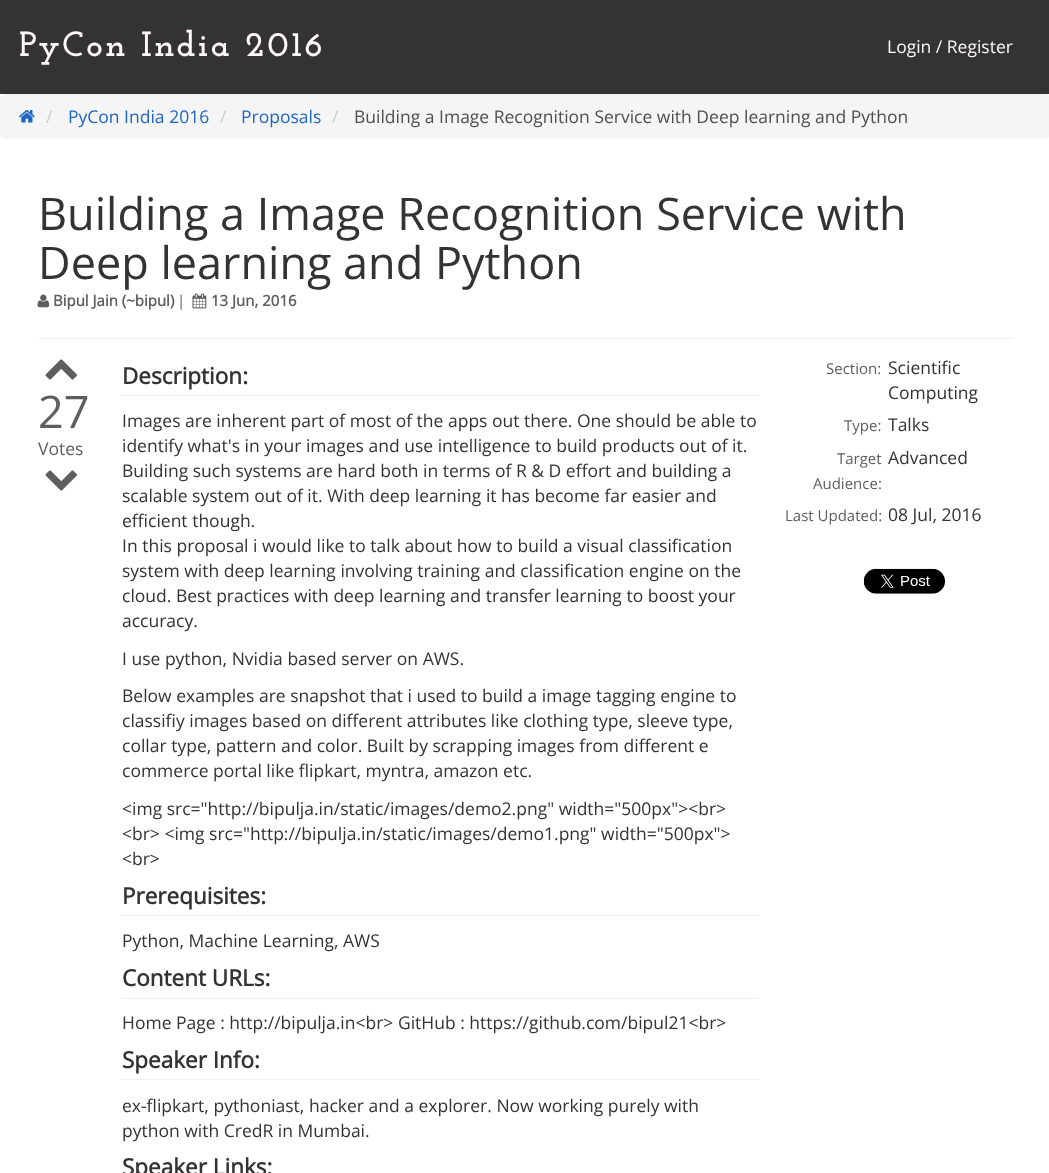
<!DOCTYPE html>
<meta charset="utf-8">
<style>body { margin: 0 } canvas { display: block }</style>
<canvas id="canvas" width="1049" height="1173"></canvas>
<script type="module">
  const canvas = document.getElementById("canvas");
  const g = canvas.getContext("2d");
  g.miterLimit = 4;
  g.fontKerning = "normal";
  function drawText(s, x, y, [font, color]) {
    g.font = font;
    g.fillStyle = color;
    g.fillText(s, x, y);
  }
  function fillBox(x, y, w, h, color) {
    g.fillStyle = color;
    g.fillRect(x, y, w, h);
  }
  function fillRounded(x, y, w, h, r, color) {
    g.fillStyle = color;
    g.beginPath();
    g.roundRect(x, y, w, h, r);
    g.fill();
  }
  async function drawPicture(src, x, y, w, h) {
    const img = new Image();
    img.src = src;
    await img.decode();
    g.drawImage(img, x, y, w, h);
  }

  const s1 = ["bold 35px Josefin Slab", "#FFF7F8"];
  const s2 = ["17.5px Open Sans", "#FFF7F8"];
  const s3 = ["17.5px Open Sans", "#CCCCCC"];
  const s4 = ["17.5px Open Sans", "#2066C5"];
  const s5 = ["17.5px Open Sans", "#4F4F4F"];
  const s6 = ["45px Open Sans", "#333333"];
  const s7 = ["bold 15px Open Sans", "#5E5E5E"];
  const s8 = ["15px Open Sans", "#5E5E5E"];
  const s9 = ["45px Open Sans", "#5E5E5E"];
  const s10 = ["17.5px Open Sans", "#5E5E5E"];
  const s11 = ["bold 22.5px Open Sans", "#333333"];
  const s12 = ["17.5px Open Sans", "#333333"];

  fillBox(0, 0, 1049, 1173, "#FFFFFF");
  fillBox(0, 0, 1049, 94, "#333333");
  g.letterSpacing = "2.5px";
  drawText("PyCon India 2016", 19, 56, s1);
  g.letterSpacing = "0px";
  drawText("Login / Register", 887, 53, s2);
  fillRounded(0, 94, 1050, 45, 5, "#F5F5F5");
  await drawPicture("pic1.png", 19, 110, 16, 13);
  drawText("/", 46, 123, s3);
  drawText("PyCon India 2016", 68, 123, s4);
  drawText("/", 220, 123, s3);
  drawText("Proposals", 241, 123, s4);
  drawText("/", 332, 123, s3);
  drawText("Building a Image Recognition Service with Deep learning and Python", 354, 123, s5);
  drawText("Building a Image Recognition Service with", 38, 230, s6);
  drawText("Deep learning and Python", 38, 279, s6);
  await drawPicture("pic2.png", 37, 294, 13, 14);
  drawText("Bipul Jain (~bipul)", 53, 306, s7);
  drawText("|", 177, 306, s8);
  await drawPicture("pic3.png", 192, 293, 15, 16);
  drawText("13 Jun, 2016", 211, 306, s7);
  fillBox(38, 338, 975, 1, "#EEEEEE");
  await drawPicture("pic4.png", 45, 359, 32, 21);
  drawText("27", 38, 428, s9);
  drawText("Votes", 38, 455, s10);
  await drawPicture("pic5.png", 45, 470, 32, 21);
  fillBox(121, 395, 638, 1, "#EEEEEE");
  drawText("Description:", 122, 384, s11);
  drawText("Images are inherent part of most of the apps out there. One should be able to", 122, 427, s12);
  drawText("identify what's in your images and use intelligence to build products out of it.", 122, 452, s12);
  drawText("Building such systems are hard both in terms of R & D effort and building a", 122, 477, s12);
  drawText("scalable system out of it. With deep learning it has become far easier and", 122, 502, s12);
  drawText("efficient though.", 122, 527, s12);
  drawText("In this proposal i would like to talk about how to build a visual classification", 122, 552, s12);
  drawText("system with deep learning involving training and classification engine on the", 122, 577, s12);
  drawText("cloud. Best practices with deep learning and transfer learning to boost your", 122, 602, s12);
  drawText("accuracy.", 122, 627, s12);
  drawText("I use python, Nvidia based server on AWS.", 122, 665, s12);
  drawText("Below examples are snapshot that i used to build a image tagging engine to", 122, 702, s12);
  drawText("classifiy images based on different attributes like clothing type, sleeve type,", 122, 727, s12);
  drawText("collar type, pattern and color. Built by scrapping images from different e", 122, 752, s12);
  drawText("commerce portal like flipkart, myntra, amazon etc.", 122, 777, s12);
  drawText("<img src=\"http://bipulja.in/static/images/demo2.png\" width=\"500px\"><br>", 122, 815, s12);
  drawText("<br> <img src=\"http://bipulja.in/static/images/demo1.png\" width=\"500px\">", 122, 840, s12);
  drawText("<br>", 122, 865, s12);
  fillBox(121, 915, 638, 1, "#EEEEEE");
  drawText("Prerequisites:", 122, 904, s11);
  drawText("Python, Machine Learning, AWS", 122, 947, s12);
  fillBox(121, 998, 638, 1, "#EEEEEE");
  drawText("Content URLs:", 122, 986, s11);
  drawText("Home Page : http://bipulja.in<br> GitHub : https://github.com/bipul21<br>", 122, 1029, s12);
  fillBox(121, 1079, 638, 1, "#EEEEEE");
  drawText("Speaker Info:", 122, 1068, s11);
  drawText("ex-flipkart, pythoniast, hacker and a explorer. Now working purely with", 122, 1112, s12);
  drawText("python with CredR in Mumbai.", 122, 1137, s12);
  drawText("Speaker Links:", 122, 1175, s11);
  drawText("Section:", 826, 374, s8);
  drawText("Scientific", 888, 374, s12);
  drawText("Computing", 888, 399, s12);
  drawText("Type:", 844, 431, s8);
  drawText("Talks", 888, 431, s12);
  drawText("Target", 837, 464, s8);
  drawText("Audience:", 813, 489, s8);
  drawText("Advanced", 888, 464, s12);
  drawText("Last Updated:", 785, 521, s8);
  drawText("08 Jul, 2016", 888, 521, s12);
  await drawPicture("pic6.png", 863, 568, 82, 26);
</script>
